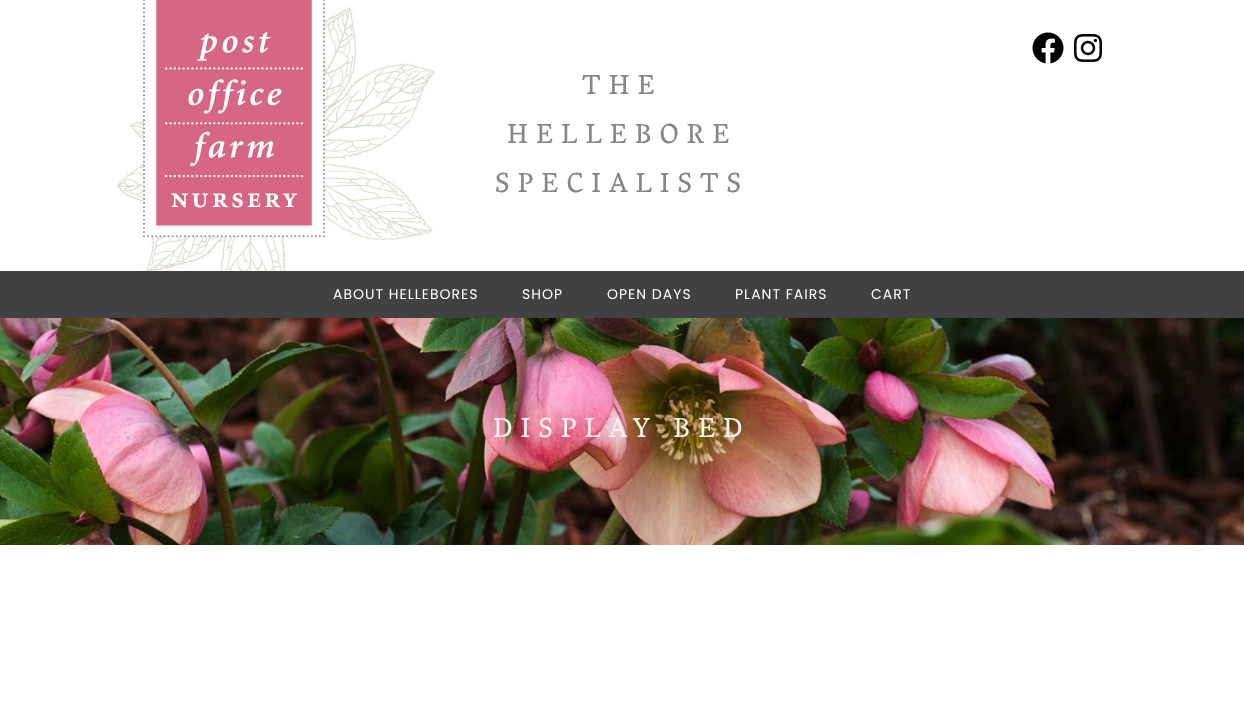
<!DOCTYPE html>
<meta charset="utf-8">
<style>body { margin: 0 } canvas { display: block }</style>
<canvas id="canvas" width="1244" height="719"></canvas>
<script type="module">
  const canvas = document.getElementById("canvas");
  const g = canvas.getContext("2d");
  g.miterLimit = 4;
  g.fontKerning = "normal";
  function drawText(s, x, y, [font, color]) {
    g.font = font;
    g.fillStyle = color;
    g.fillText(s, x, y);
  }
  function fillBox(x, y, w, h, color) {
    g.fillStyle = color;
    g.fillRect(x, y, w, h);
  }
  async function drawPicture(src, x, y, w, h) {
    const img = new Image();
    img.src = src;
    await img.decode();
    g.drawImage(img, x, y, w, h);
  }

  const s1 = ["28px Vesper Libre", "#868684"];
  const s2 = ["14px Poppins", "#FFFFFF"];
  const s3 = ["28px Vesper Libre", "#F7F1F0"];

  fillBox(0, 0, 1244, 719, "#FFFFFF");
  await drawPicture("pic1.png", 114, 0, 324, 271);
  await drawPicture("pic2.png", 143, 0, 182, 238);
  await drawPicture("pic3.png", 1032, 32, 32, 32);
  await drawPicture("pic4.png", 1074, 34, 28, 28);
  g.letterSpacing = "8px";
  drawText("THE", 582, 94, s1);
  drawText("HELLEBORE", 507, 143, s1);
  drawText("SPECIALISTS", 495, 192, s1);
  fillBox(0, 271, 1244, 47, "#414042");
  g.letterSpacing = "1px";
  drawText("ABOUT HELLEBORES", 333, 299, s2);
  drawText("SHOP", 522, 299, s2);
  drawText("OPEN DAYS", 607, 299, s2);
  drawText("PLANT FAIRS", 735, 299, s2);
  drawText("CART", 871, 299, s2);
  await drawPicture("pic5.png", 0, 318, 1244, 227);
  g.letterSpacing = "8px";
  drawText("DISPLAY BED", 493, 437, s3);
</script>
